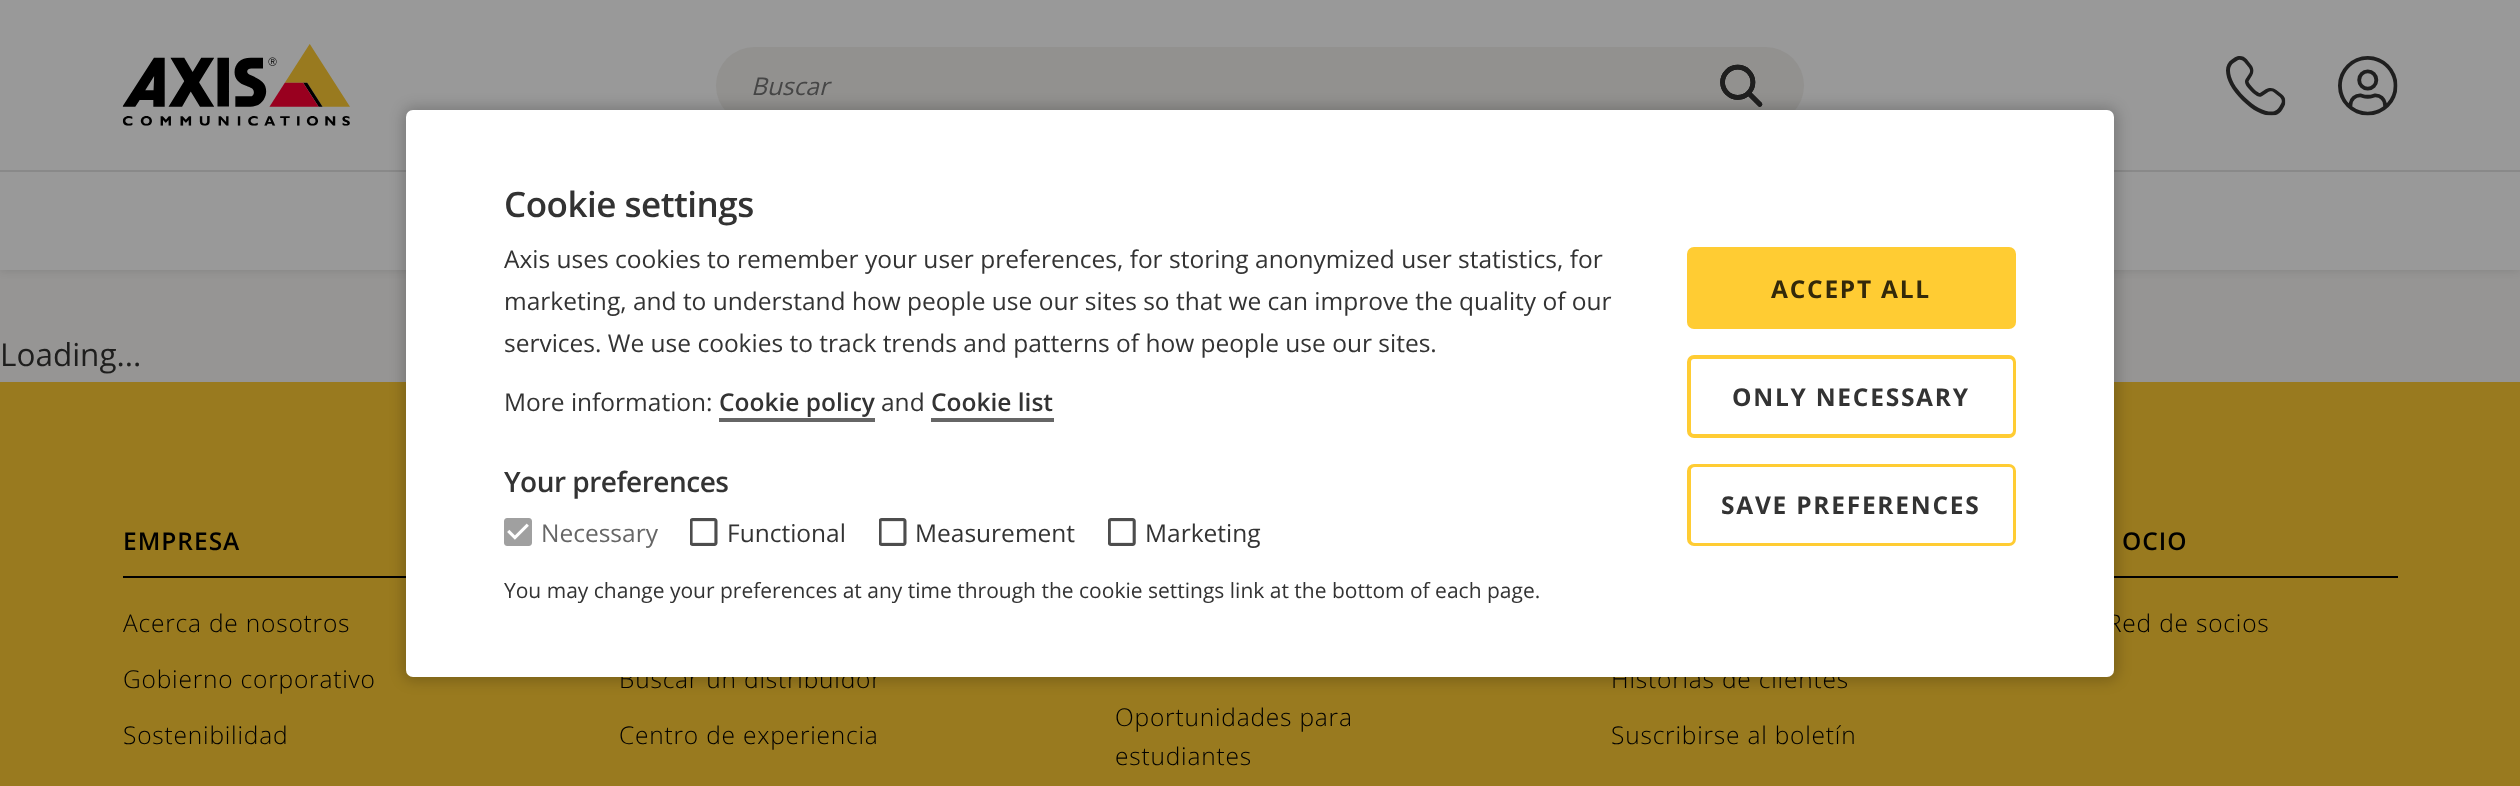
<!DOCTYPE html>
<meta charset="utf-8">
<style>body { margin: 0 } canvas { display: block }</style>
<canvas id="canvas" width="2520" height="786"></canvas>
<script type="module">
  const canvas = document.getElementById("canvas");
  const g = canvas.getContext("2d");
  g.miterLimit = 4;
  g.fontKerning = "normal";
  function drawText(s, x, y, [font, color]) {
    g.font = font;
    g.fillStyle = color;
    g.fillText(s, x, y);
  }
  function fillBox(x, y, w, h, color) {
    g.fillStyle = color;
    g.fillRect(x, y, w, h);
  }
  function fillRounded(x, y, w, h, r, color) {
    g.fillStyle = color;
    g.beginPath();
    g.roundRect(x, y, w, h, r);
    g.fill();
  }
  async function drawPicture(src, x, y, w, h) {
    const img = new Image();
    img.src = src;
    await img.decode();
    g.drawImage(img, x, y, w, h);
  }

  const s1 = ["italic 24.5px Open Sans", "#464646"];
  const s2 = ["31.5px Open Sans", "#1E1E1D"];
  const s3 = ["600 24.5px Open Sans", "#000000"];
  const s4 = ["300 24.5px Open Sans", "#000000"];
  const s5 = ["600 35px Open Sans", "#333333"];
  const s6 = ["24.5px Open Sans", "#333333"];
  const s7 = ["600 24.5px Open Sans", "#333333"];
  const s8 = ["600 28px Open Sans", "#333333"];
  const s9 = ["24.5px Open Sans", "#666666"];
  const s10 = ["21px Open Sans", "#333333"];
  const s11 = ["bold 24.5px Open Sans", "#33290A"];
  const s12 = ["bold 24.5px Open Sans", "#333333"];

  fillBox(0, 0, 2520, 786, "#969594");
  g.fillStyle = "rgba(0, 0, 0, 0.1)";
  g.filter = "blur(4.5px)";
  g.beginPath();
  g.rect(0, 173, 2520, 98);
  g.fill();
  g.filter = "none";
  fillBox(0, 0, 2520, 170, "#999999");
  fillBox(0, 170, 2520, 2, "#898989");
  await drawPicture("pic1.png", 122, 44, 228, 82);
  fillRounded(716, 47, 1088, 77, 38.5, "#92918F");
  drawText("Buscar", 751, 95, s1);
  await drawPicture("pic2.png", 1720, 64, 43, 43);
  await drawPicture("pic3.png", 2226, 56, 60, 60);
  await drawPicture("pic4.png", 2338, 56, 60, 60);
  fillBox(0, 172, 2520, 98, "#999999");
  drawText("Loading...", 0, 366, s2);
  fillBox(0, 382, 2520, 404, "#997A1F");
  g.letterSpacing = "1px";
  drawText("EMPRESA", 123, 550, s3);
  fillBox(123, 576, 290, 2, "#000000");
  g.letterSpacing = "0.8px";
  drawText("Acerca de nosotros", 123, 632, s4);
  drawText("Gobierno corporativo", 123, 688, s4);
  drawText("Sostenibilidad", 123, 744, s4);
  g.letterSpacing = "1px";
  drawText("OCIO", 2122, 550, s3);
  fillBox(2107, 576, 291, 2, "#000000");
  g.letterSpacing = "0.8px";
  drawText("Red de socios", 2107, 632, s4);
  drawText("Buscar un distribuidor", 619, 688, s4);
  drawText("Centro de experiencia", 619, 744, s4);
  drawText("Oportunidades para", 1115, 726, s4);
  drawText("estudiantes", 1115, 765, s4);
  drawText("Historias de clientes", 1611, 688, s4);
  drawText("Suscribirse al boletín", 1611, 744, s4);
  g.fillStyle = "rgba(0, 0, 0, 0.2)";
  g.filter = "blur(7px)";
  g.beginPath();
  g.roundRect(403, 107, 1715, 574, 11);
  g.fill();
  g.filter = "none";
  fillRounded(406, 110, 1708, 567, 7, "#FFFFFF");
  g.letterSpacing = "-0.5px";
  drawText("Cookie settings", 504, 217, s5);
  g.letterSpacing = "0px";
  drawText("Axis uses cookies to remember your user preferences, for storing anonymized user statistics, for", 504, 268, s6);
  drawText("marketing, and to understand how people use our sites so that we can improve the quality of our", 504, 310, s6);
  drawText("services. We use cookies to track trends and patterns of how people use our sites.", 504, 352, s6);
  drawText("More information:", 504, 411, s6);
  drawText("Cookie policy", 719, 411, s7);
  fillBox(719, 418, 156, 4, "#666666");
  drawText("and", 881, 411, s6);
  drawText("Cookie list", 931, 411, s7);
  fillBox(931, 418, 123, 4, "#666666");
  g.letterSpacing = "-0.5px";
  drawText("Your preferences", 504, 492, s8);
  await drawPicture("pic5.png", 504, 518, 28, 28);
  g.letterSpacing = "0px";
  drawText("Necessary", 541, 542, s9);
  await drawPicture("pic6.png", 690, 518, 28, 28);
  drawText("Functional", 727, 542, s6);
  await drawPicture("pic6.png", 879, 518, 28, 28);
  drawText("Measurement", 915, 542, s6);
  await drawPicture("pic7.png", 1108, 518, 28, 28);
  drawText("Marketing", 1145, 542, s6);
  drawText("You may change your preferences at any time through the cookie settings link at the bottom of each page.", 504, 598, s10);
  fillRounded(1687, 247, 329, 82, 7, "#FFCC33");
  g.letterSpacing = "1.75px";
  drawText("ACCEPT ALL", 1771, 298, s11);
  g.fillStyle = "#EFEFEF";
  g.beginPath();
  g.roundRect(1689, 357, 325, 79, 5);
  g.fill();
  g.strokeStyle = "#FFCC33";
  g.lineWidth = 4;
  g.stroke();
  fillRounded(1691, 359, 322, 75, 4, "#FFFFFF");
  drawText("ONLY NECESSARY", 1732, 406, s12);
  g.beginPath();
  g.roundRect(1689, 466, 325, 78, 5);
  g.stroke();
  fillRounded(1691, 467, 322, 76, 4, "#FFFFFF");
  drawText("SAVE PREFERENCES", 1721, 514, s12);
</script>
